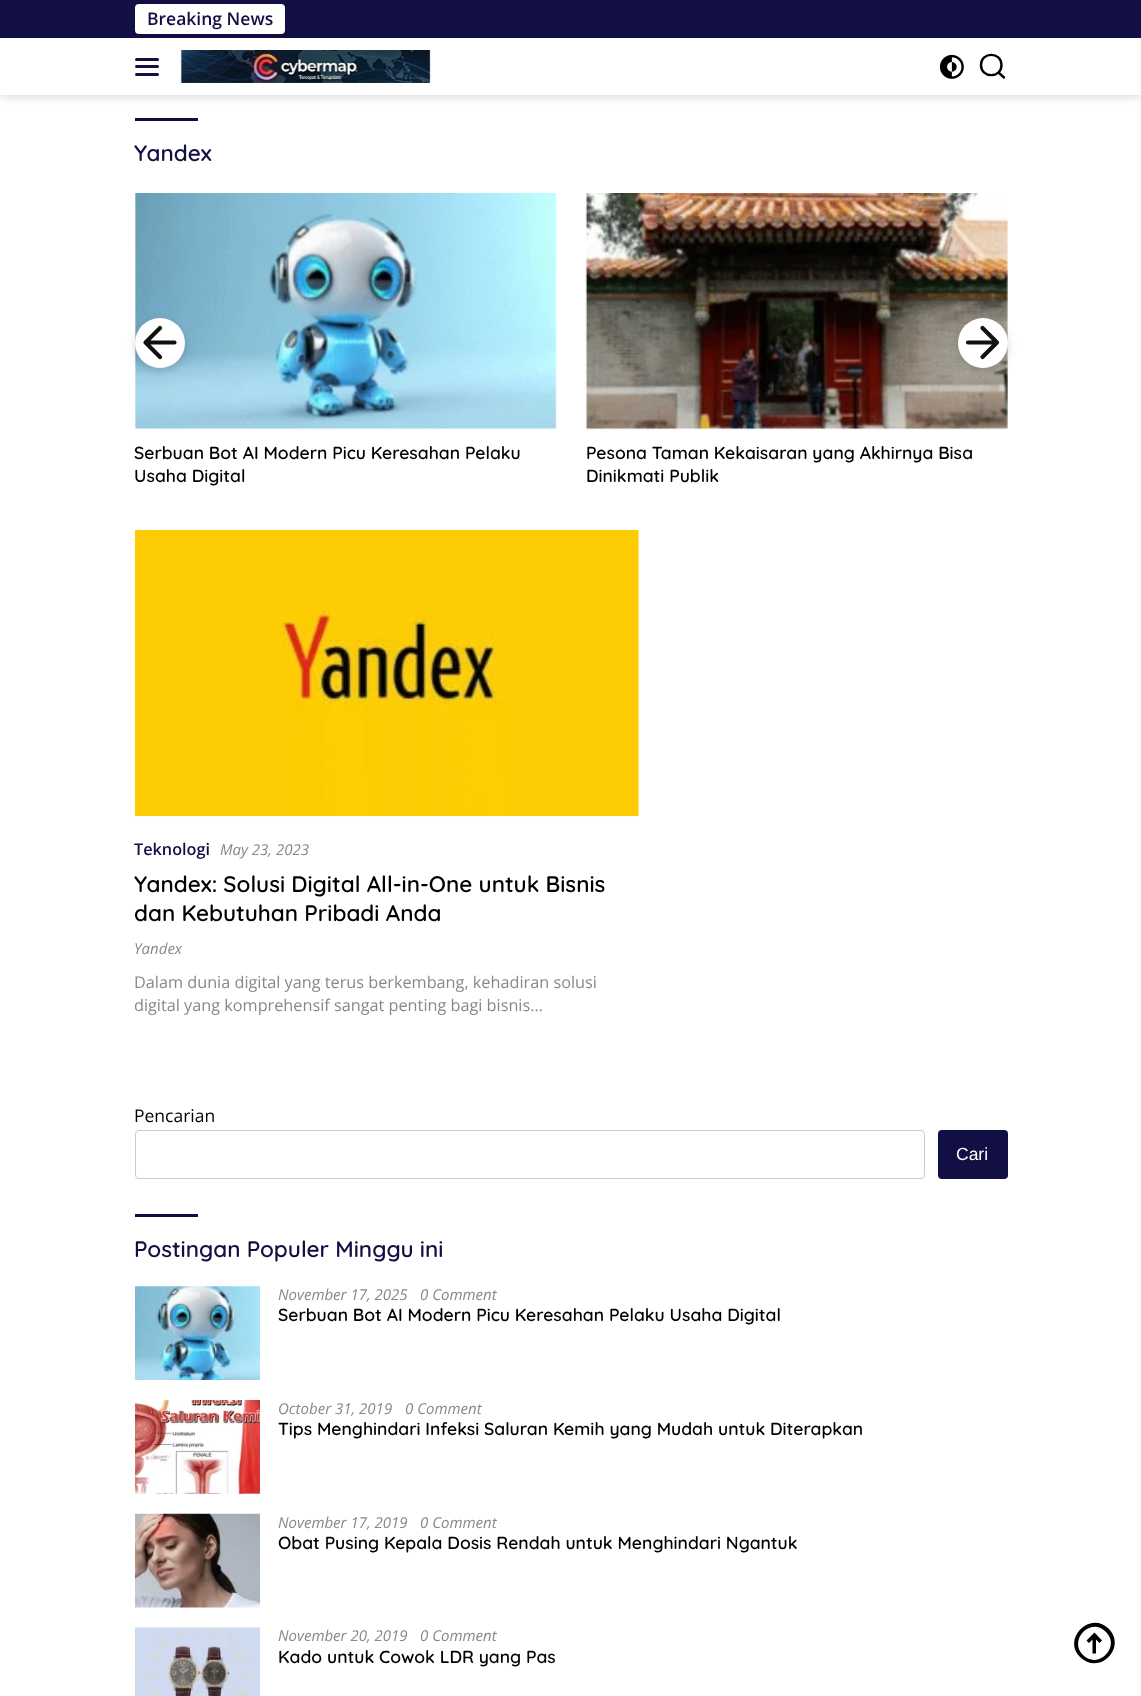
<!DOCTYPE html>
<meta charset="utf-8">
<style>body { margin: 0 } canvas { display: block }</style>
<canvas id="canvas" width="1141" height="1696"></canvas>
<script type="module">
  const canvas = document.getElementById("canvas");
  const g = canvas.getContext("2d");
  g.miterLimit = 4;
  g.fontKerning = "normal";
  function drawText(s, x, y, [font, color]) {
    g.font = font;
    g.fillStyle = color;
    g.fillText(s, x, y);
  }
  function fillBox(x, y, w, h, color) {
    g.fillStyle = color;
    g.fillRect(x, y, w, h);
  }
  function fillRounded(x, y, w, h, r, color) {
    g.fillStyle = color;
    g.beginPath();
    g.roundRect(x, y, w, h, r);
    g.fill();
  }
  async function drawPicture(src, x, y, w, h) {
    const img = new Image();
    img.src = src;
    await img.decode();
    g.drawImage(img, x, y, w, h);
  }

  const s1 = ["600 17.5px Open Sans", "#110F44"];
  const s2 = ["600 22.5px Quicksand", "#110F44"];
  const s3 = ["600 17.5px Quicksand", "#000000"];
  const s4 = ["600 16.25px Open Sans", "#110F44"];
  const s5 = ["italic 15px Open Sans", "#888888"];
  const s6 = ["600 22.5px Quicksand", "#000000"];
  const s7 = ["16.25px Open Sans", "#888888"];
  const s8 = ["17.5px Open Sans", "#000000"];
  const s9 = ["17.5px Liberation Sans", "#FFFFFF"];

  fillBox(0, 0, 1141, 1696, "#FFFFFF");
  g.fillStyle = "rgba(0, 0, 0, 0.2)";
  g.filter = "blur(6px)";
  g.beginPath();
  g.rect(0, 0, 1141, 95);
  g.fill();
  g.filter = "none";
  fillBox(0, 38, 1141, 57, "#FFFFFF");
  fillBox(0, 0, 1141, 38, "#110F44");
  fillRounded(135, 4, 150, 30, 4, "#FFFFFF");
  drawText("Breaking News", 147, 25, s1);
  fillRounded(135, 58, 24, 3, 1.5, "#110F44");
  fillRounded(135, 65, 24, 3, 1.5, "#110F44");
  fillRounded(135, 73, 24, 3, 1.5, "#110F44");
  await drawPicture("pic1.png", 180, 50, 251, 33);
  await drawPicture("pic2.png", 939, 54, 25, 25);
  g.beginPath();
  g.moveTo(1004, 77.5);
  g.lineTo(998.5, 72.5);
  g.moveTo(1001.5, 65);
  g.bezierCurveTo(1001.5, 78.5, 981, 78.5, 981, 65);
  g.bezierCurveTo(981, 51.5, 1001.5, 51.5, 1001.5, 65);
  g.closePath();
  g.strokeStyle = "#000000";
  g.lineWidth = 2.4;
  g.lineCap = "round";
  g.stroke();
  fillBox(135, 118, 63, 3, "#110F44");
  drawText("Yandex", 134, 161, s2);
  await drawPicture("pic3.png", 135, 193, 422, 237);
  g.fillStyle = "rgba(51, 51, 51, 0.2)";
  g.filter = "blur(4px)";
  g.beginPath();
  g.roundRect(135, 321, 50, 50, 25);
  g.fill();
  g.filter = "none";
  g.fillStyle = "#FFFFFF";
  g.beginPath();
  g.arc(160, 343, 25, 0, Math.PI * 2);
  g.fill();
  g.beginPath();
  g.moveTo(174.5, 342.5);
  g.lineTo(145.5, 342.5);
  g.moveTo(160, 357);
  g.lineTo(145.5, 342.5);
  g.lineTo(160, 328);
  g.strokeStyle = "#111111";
  g.lineWidth = 4.2;
  g.lineJoin = "round";
  g.stroke();
  await drawPicture("pic4.png", 585, 193, 423, 237);
  g.fillStyle = "rgba(51, 51, 51, 0.2)";
  g.filter = "blur(4px)";
  g.beginPath();
  g.roundRect(958, 321, 50, 50, 25);
  g.fill();
  g.filter = "none";
  g.fillStyle = "#FFFFFF";
  g.beginPath();
  g.arc(983, 343, 25, 0, Math.PI * 2);
  g.fill();
  g.beginPath();
  g.moveTo(968, 342.5);
  g.lineTo(997, 342.5);
  g.moveTo(982.5, 328);
  g.lineTo(997, 342.5);
  g.lineTo(982.5, 357);
  g.stroke();
  drawText("Serbuan Bot AI Modern Picu Keresahan Pelaku", 134, 459, s3);
  drawText("Usaha Digital", 134, 482, s3);
  drawText("Pesona Taman Kekaisaran yang Akhirnya Bisa", 586, 459, s3);
  drawText("Dinikmati Publik", 586, 482, s3);
  await drawPicture("pic5.png", 135, 530, 504, 287);
  drawText("Teknologi", 134, 855, s4);
  drawText("May 23, 2023", 220, 855, s5);
  drawText("Yandex: Solusi Digital All-in-One untuk Bisnis", 134, 892, s6);
  drawText("dan Kebutuhan Pribadi Anda", 134, 921, s6);
  drawText("Yandex", 134, 954, s5);
  drawText("Dalam dunia digital yang terus berkembang, kehadiran solusi", 134, 988, s7);
  drawText("digital yang komprehensif sangat penting bagi bisnis…", 134, 1011, s7);
  drawText("Pencarian", 134, 1122, s8);
  g.beginPath();
  g.roundRect(135.5, 1130.5, 789, 48, 3.5);
  g.strokeStyle = "#CCCCCC";
  g.lineWidth = 1;
  g.lineJoin = "miter";
  g.stroke();
  fillRounded(938, 1130, 70, 49, 4, "#110F44");
  drawText("Cari", 956, 1160, s9);
  fillBox(135, 1214, 63, 3, "#110F44");
  drawText("Postingan Populer Minggu ini", 134, 1257, s2);
  await drawPicture("pic6.png", 135, 1286, 125, 94);
  drawText("November 17, 2025", 278, 1300, s5);
  drawText("0 Comment", 420, 1300, s5);
  drawText("Serbuan Bot AI Modern Picu Keresahan Pelaku Usaha Digital", 278, 1321, s3);
  await drawPicture("pic7.png", 135, 1400, 125, 94);
  drawText("October 31, 2019", 278, 1414, s5);
  drawText("0 Comment", 405, 1414, s5);
  drawText("Tips Menghindari Infeksi Saluran Kemih yang Mudah untuk Diterapkan", 278, 1435, s3);
  await drawPicture("pic8.png", 135, 1513, 125, 95);
  drawText("November 17, 2019", 278, 1528, s5);
  drawText("0 Comment", 420, 1528, s5);
  drawText("Obat Pusing Kepala Dosis Rendah untuk Menghindari Ngantuk", 278, 1549, s3);
  await drawPicture("pic9.png", 135, 1627, 125, 69);
  drawText("November 20, 2019", 278, 1641, s5);
  drawText("0 Comment", 420, 1641, s5);
  drawText("Kado untuk Cowok LDR yang Pas", 278, 1663, s3);
  g.beginPath();
  g.moveTo(1099.5, 1643);
  g.lineTo(1102, 1640.5);
  g.lineTo(1094.5, 1632.5);
  g.lineTo(1086.5, 1640.5);
  g.lineTo(1089, 1643);
  g.lineTo(1092.5, 1639.5);
  g.lineTo(1092.5, 1653.5);
  g.lineTo(1096, 1653.5);
  g.lineTo(1096, 1639.5);
  g.closePath();
  g.fill();
  g.beginPath();
  g.moveTo(1109, 1629);
  g.bezierCurveTo(1090, 1610, 1062, 1639, 1080, 1657);
  g.bezierCurveTo(1099, 1676, 1127, 1648, 1109, 1629);
  g.closePath();
  g.moveTo(1106, 1632);
  g.bezierCurveTo(1091, 1616, 1068, 1640, 1083, 1655);
  g.bezierCurveTo(1098, 1670, 1121, 1647, 1106, 1632);
  g.closePath();
  g.fill("evenodd");
</script>
